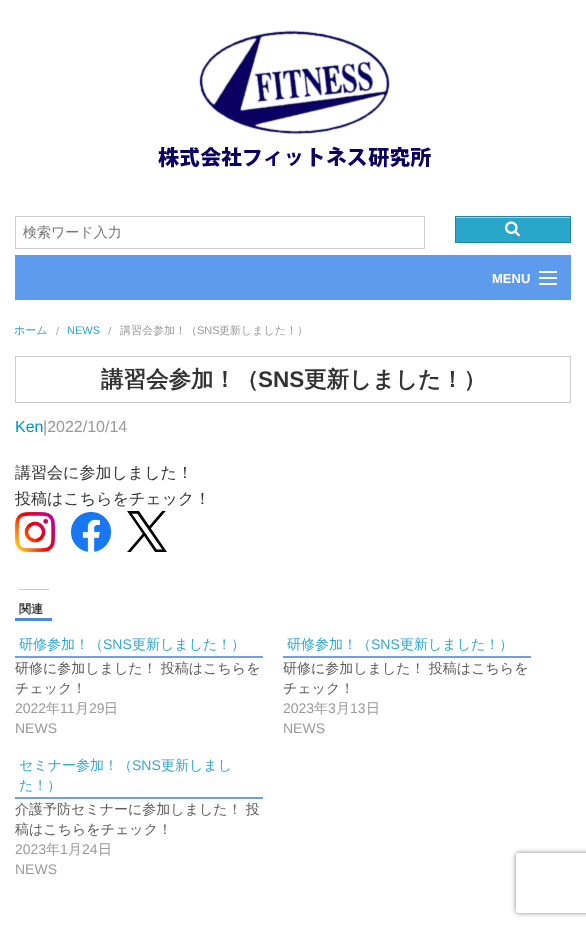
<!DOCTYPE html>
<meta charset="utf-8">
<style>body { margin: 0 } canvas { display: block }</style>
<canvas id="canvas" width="586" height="927"></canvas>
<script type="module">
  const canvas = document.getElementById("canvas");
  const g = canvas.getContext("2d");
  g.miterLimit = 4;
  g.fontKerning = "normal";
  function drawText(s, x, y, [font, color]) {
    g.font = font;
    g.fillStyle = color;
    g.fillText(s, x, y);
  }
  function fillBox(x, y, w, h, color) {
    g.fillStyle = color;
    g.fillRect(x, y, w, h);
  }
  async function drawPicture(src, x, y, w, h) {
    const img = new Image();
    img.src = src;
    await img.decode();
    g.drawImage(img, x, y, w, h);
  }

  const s1 = ["500 14px WenQuanYi Zen Hei", "#757575"];
  const s2 = ["bold 13px Liberation Sans", "#FFFFFF"];
  const s3 = ["500 11px WenQuanYi Zen Hei", "#2BA6CB"];
  const s4 = ["11px Liberation Sans", "#AAAAAA"];
  const s5 = ["11px Liberation Sans", "#2BA6CB"];
  const s6 = ["500 11px WenQuanYi Zen Hei", "#999999"];
  const s7 = ["11px Liberation Sans", "#999999"];
  const s8 = ["bold 22.5px WenQuanYi Zen Hei", "#333333"];
  const s9 = ["bold 22.5px Liberation Sans", "#333333"];
  const s10 = ["16px Liberation Sans", "#0091C5"];
  const s11 = ["16px Liberation Sans", "#999999"];
  const s12 = ["500 16px WenQuanYi Zen Hei", "#333333"];
  const s13 = ["bold 12px WenQuanYi Zen Hei", "#333333"];
  const s14 = ["500 14px WenQuanYi Zen Hei", "#33A7D1"];
  const s15 = ["14px Liberation Sans", "#33A7D1"];
  const s16 = ["500 14px WenQuanYi Zen Hei", "#5C5C5C"];
  const s17 = ["14px Liberation Sans", "#999999"];
  const s18 = ["500 14px WenQuanYi Zen Hei", "#999999"];

  fillBox(0, 0, 586, 927, "#FFFFFF");
  await drawPicture("pic1.png", 158, 30, 273, 138);
  g.strokeStyle = "#CCCCCC";
  g.strokeRect(15.5, 216.5, 409, 32);
  drawText("検索ワード入力", 23, 237, s1);
  fillBox(456, 218, 114, 24, "#2BA6CB");
  fillBox(456, 217, 114, 1, "#95D3E5");
  g.strokeStyle = "#2284A1";
  g.strokeRect(455.5, 216.5, 115, 26);
  await drawPicture("pic2.png", 505, 221, 15, 16);
  fillBox(15, 255, 556, 45, "#5D9CEC");
  fillBox(539, 283, 18, 2, "#FFFFFF");
  fillBox(539, 277, 18, 2, "#FFFFFF");
  fillBox(539, 271, 18, 2, "#FFFFFF");
  drawText("MENU", 492, 283, s2);
  drawText("ホーム", 14, 334, s3);
  drawText("/", 56, 335, s4);
  drawText("NEWS", 67, 334, s5);
  drawText("/", 108, 335, s4);
  drawText("講習会参加！（", 120, 334, s6);
  drawText("SNS", 197, 334, s7);
  drawText("更新しました！）", 219, 334, s6);
  g.strokeStyle = "#CCCCCC";
  g.strokeRect(15.5, 356.5, 555, 46);
  drawText("講習会参加！（", 101, 387, s8);
  drawText("SNS", 258, 387, s9);
  drawText("更新しました！）", 304, 387, s8);
  drawText("Ken", 15, 432, s10);
  drawText("|2022/10/14", 43, 432, s11);
  drawText("講習会に参加しました！", 15, 478, s12);
  drawText("投稿はこちらをチェック！", 15, 504, s12);
  await drawPicture("pic3.png", 15, 512, 40, 40);
  await drawPicture("pic4.png", 71, 512, 40, 40);
  await drawPicture("pic5.png", 127, 511, 40, 41);
  fillBox(15, 618, 37, 3, "#4A89DC");
  fillBox(19, 589, 30, 1, "#CCCCCC");
  drawText("関連", 19, 613, s13);
  fillBox(15, 656, 248, 2, "#6EA1E3");
  drawText("研修参加！（", 19, 649, s14);
  drawText("SNS", 103, 649, s15);
  drawText("更新しました！）", 132, 649, s14);
  drawText("研修に参加しました！ 投稿はこちらを", 15, 673, s16);
  drawText("チェック！", 15, 693, s16);
  drawText("2022", 15, 713, s17);
  drawText("年", 46, 713, s18);
  drawText("11", 60, 713, s17);
  drawText("月", 75, 713, s18);
  drawText("29", 89, 713, s17);
  drawText("日", 104, 713, s18);
  drawText("NEWS", 15, 733, s17);
  fillBox(283, 656, 248, 2, "#6EA1E3");
  drawText("研修参加！（", 287, 649, s14);
  drawText("SNS", 371, 649, s15);
  drawText("更新しました！）", 400, 649, s14);
  drawText("研修に参加しました！ 投稿はこちらを", 283, 673, s16);
  drawText("チェック！", 283, 693, s16);
  drawText("2023", 283, 713, s17);
  drawText("年", 314, 713, s18);
  drawText("3", 328, 713, s17);
  drawText("月", 336, 713, s18);
  drawText("13", 350, 713, s17);
  drawText("日", 366, 713, s18);
  drawText("NEWS", 283, 733, s17);
  fillBox(15, 797, 248, 2, "#6EA1E3");
  drawText("セミナー参加！（", 19, 770, s14);
  drawText("SNS", 132, 770, s15);
  drawText("更新しまし", 161, 770, s14);
  drawText("た！）", 19, 790, s14);
  drawText("介護予防セミナーに参加しました！ 投", 15, 814, s16);
  drawText("稿はこちらをチェック！", 15, 834, s16);
  drawText("2023", 15, 854, s17);
  drawText("年", 46, 854, s18);
  drawText("1", 60, 854, s17);
  drawText("月", 68, 854, s18);
  drawText("24", 82, 854, s17);
  drawText("日", 98, 854, s18);
  drawText("NEWS", 15, 874, s17);
  g.save();
  g.beginPath();
  g.moveTo(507, 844);
  g.lineTo(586, 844);
  g.lineTo(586, 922);
  g.lineTo(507, 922);
  g.closePath();
  g.moveTo(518, 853);
  g.lineTo(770, 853);
  g.bezierCurveTo(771, 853, 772, 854, 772, 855);
  g.lineTo(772, 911);
  g.bezierCurveTo(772, 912, 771, 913, 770, 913);
  g.lineTo(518, 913);
  g.bezierCurveTo(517, 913, 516, 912, 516, 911);
  g.lineTo(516, 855);
  g.bezierCurveTo(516, 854, 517, 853, 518, 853);
  g.closePath();
  g.clip("evenodd");
  g.fillStyle = "#808080";
  g.filter = "blur(2.5px)";
  g.beginPath();
  g.roundRect(516, 853, 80, 60, 2);
  g.fill();
  g.filter = "none";
  g.restore();
</script>
